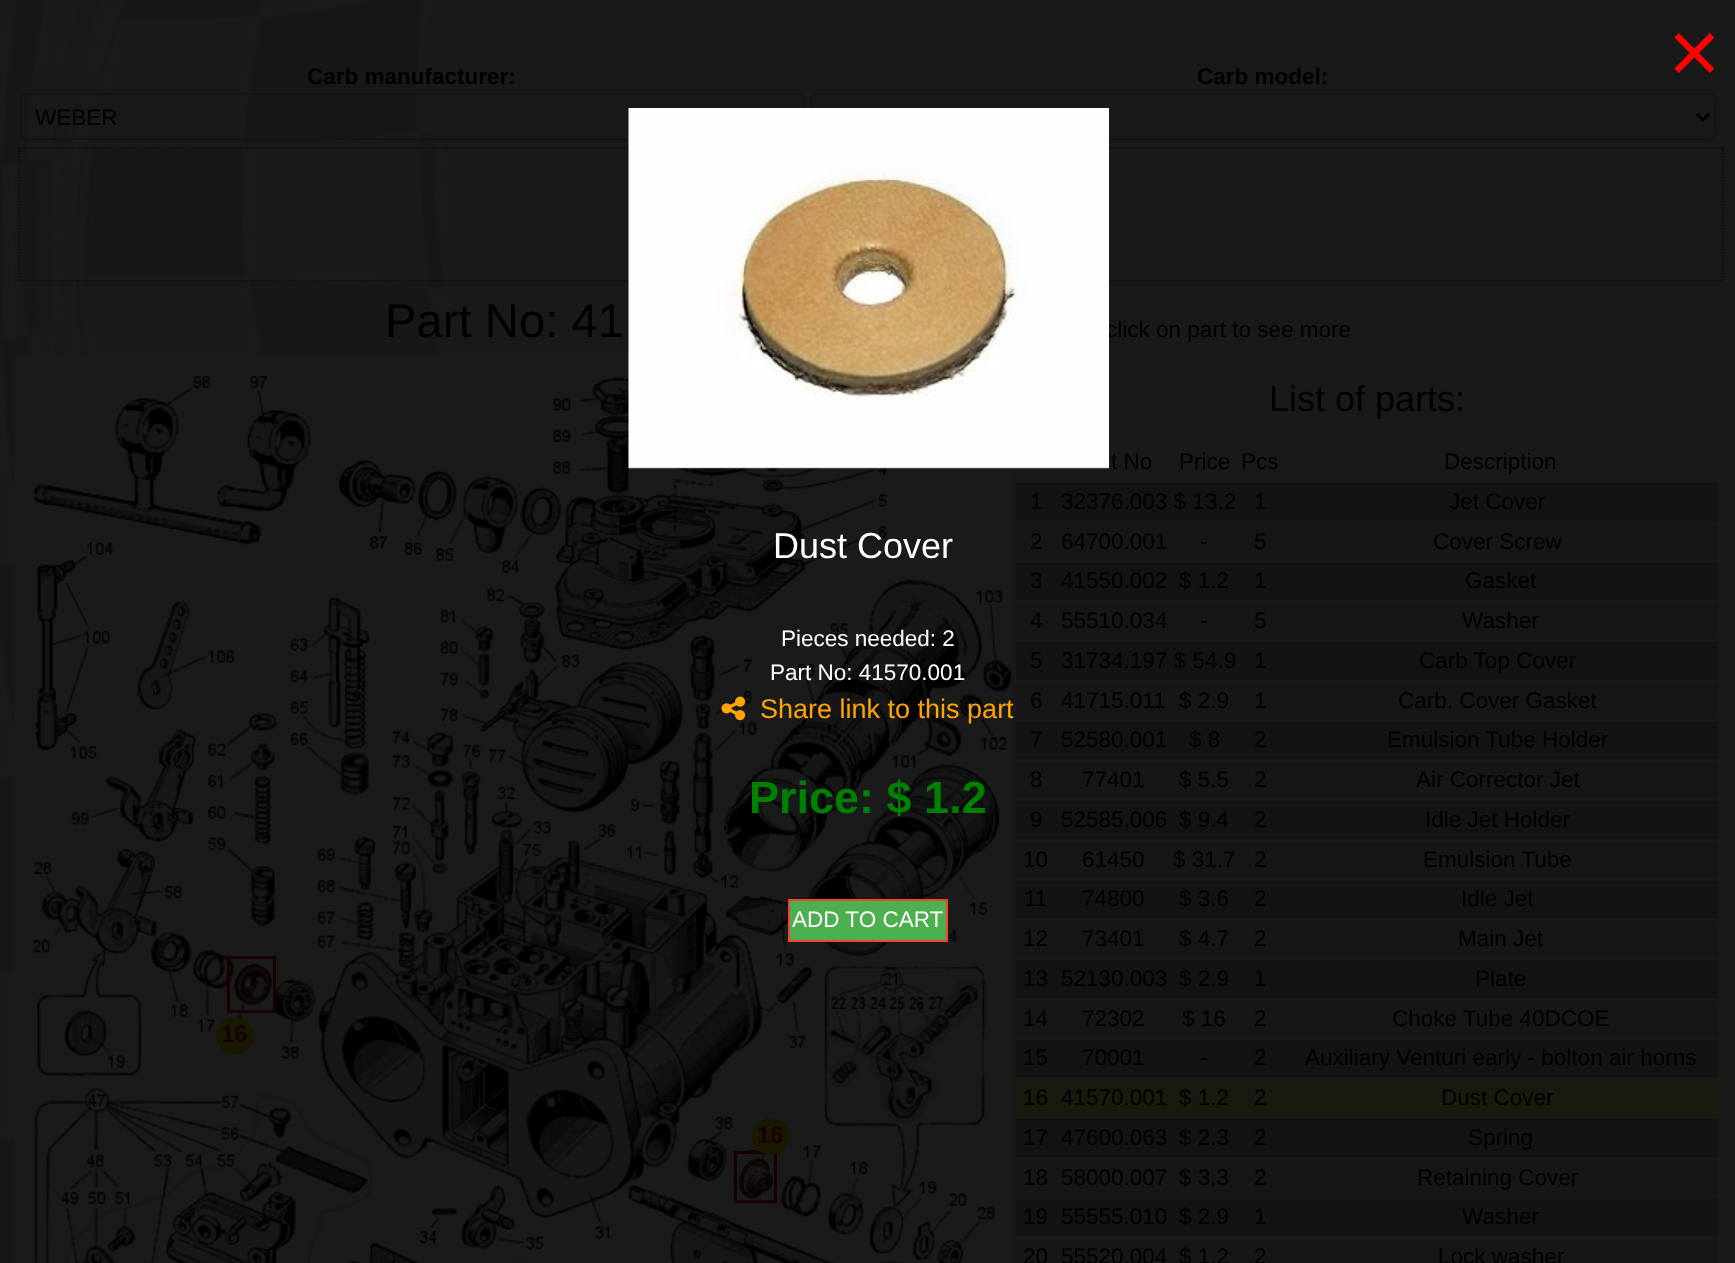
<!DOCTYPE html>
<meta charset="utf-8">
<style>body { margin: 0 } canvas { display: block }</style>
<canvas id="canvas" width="1735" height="1263"></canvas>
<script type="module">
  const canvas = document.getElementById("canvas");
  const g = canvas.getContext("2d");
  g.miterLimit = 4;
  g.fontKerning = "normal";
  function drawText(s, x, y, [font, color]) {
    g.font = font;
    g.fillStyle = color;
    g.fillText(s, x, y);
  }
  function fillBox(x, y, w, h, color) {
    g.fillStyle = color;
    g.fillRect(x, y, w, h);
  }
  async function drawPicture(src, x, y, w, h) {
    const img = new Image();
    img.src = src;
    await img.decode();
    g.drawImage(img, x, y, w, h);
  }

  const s1 = ["90px Liberation Sans", "#FF0000"];
  const s2 = ["22.5px Liberation Sans", "#000000"];
  const s3 = ["36px Liberation Sans", "#FFFFFF"];
  const s4 = ["22.5px Liberation Sans", "#FFFFFF"];
  const s5 = ["27px Liberation Sans", "#FFA500"];
  const s6 = ["bold 45px Liberation Sans", "#008000"];
  const s7 = ["bold 22.5px Liberation Sans", "#000000"];
  const s8 = ["47.25px Liberation Sans", "#000000"];
  const s9 = ["bold 24px Liberation Sans", "#190000"];
  const s10 = ["36px Liberation Sans", "#000000"];

  fillBox(0, 0, 1735, 1263, "#191919");
  await drawPicture("pic1.png", 0, 0, 948, 1263);
  drawText("×", 1668, 83, s1);
  g.beginPath();
  g.roundRect(21, 94, 782, 45, 5);
  g.strokeStyle = "#141414";
  g.lineWidth = 2;
  g.stroke();
  g.beginPath();
  g.roundRect(811, 94, 904, 45, 5);
  g.stroke();
  g.beginPath();
  g.moveTo(18, 148);
  g.lineTo(1723.5, 148);
  g.strokeStyle = "#0B0B0B";
  g.lineWidth = 1.5;
  g.setLineDash([1.5, 1.5]);
  g.stroke();
  g.beginPath();
  g.moveTo(1723, 147);
  g.lineTo(1723, 282);
  g.stroke();
  g.beginPath();
  g.moveTo(18, 281);
  g.lineTo(1723.5, 281);
  g.stroke();
  drawText("click on part to see more", 1106, 337, s2);
  await drawPicture("pic4.png", 15, 356, 997, 907);
  await drawPicture("pic2.png", 628, 108, 481, 361);
  drawText("Dust Cover", 773, 558, s3);
  drawText("Pieces needed: 2", 781, 646, s4);
  drawText("Part No: 41570.001", 770, 680, s4);
  await drawPicture("pic3.png", 721, 696, 25, 25);
  drawText("Share link to this part", 760, 718, s5);
  drawText("Price: $ 1.2", 749, 813, s6);
  g.fillStyle = "#4CAF50";
  g.beginPath();
  g.rect(789, 900, 158, 41);
  g.fill();
  g.strokeStyle = "#F44336";
  g.lineWidth = 2;
  g.setLineDash([]);
  g.stroke();
  drawText("ADD TO CART", 792, 927, s4);
  drawText("Carb manufacturer:", 307, 84, s7);
  drawText("WEBER", 35, 125, s2);
  drawText("Carb model:", 1197, 84, s7);
  g.beginPath();
  g.moveTo(1697, 114);
  g.lineTo(1703, 120);
  g.lineTo(1709, 114);
  g.strokeStyle = "#000000";
  g.lineWidth = 3;
  g.stroke();
  g.beginPath();
  g.moveTo(19, 147);
  g.lineTo(19, 282);
  g.strokeStyle = "#0B0B0B";
  g.lineWidth = 1.5;
  g.setLineDash([1.5, 1.5]);
  g.stroke();
  drawText("Part No: 41", 385, 337, s8);
  await drawPicture("pic5.png", 226, 963, 46, 42);
  g.strokeStyle = "#190000";
  g.lineWidth = 3;
  g.setLineDash([]);
  g.strokeRect(228.5, 957.5, 46, 54);
  g.fillStyle = "#191900";
  g.beginPath();
  g.arc(235, 1036, 19, 0, Math.PI * 2);
  g.fill();
  drawText("16", 221, 1042, s9);
  await drawPicture("pic6.png", 733, 1150, 40, 49);
  g.strokeRect(735.5, 1152.5, 40, 49);
  g.fillStyle = "#191900";
  g.beginPath();
  g.arc(770.5, 1136.5, 18.5, 0, Math.PI * 2);
  g.fill();
  drawText("16", 757, 1143, s9);
  drawText("List of parts:", 1269, 411, s10);
  drawText("t No", 1111, 469, s2);
  drawText("Price", 1179, 469, s2);
  drawText("Pcs", 1241, 469, s2);
  drawText("Description", 1444, 469, s2);
  fillBox(1016, 483, 702, 38, "#131313");
  drawText("1", 1030, 509, s2);
  drawText("32376.003 $ 13.2", 1061, 509, s2);
  drawText("1", 1254, 509, s2);
  drawText("Jet Cover", 1449, 509, s2);
  fillBox(1016, 524, 702, 36, "#161616");
  drawText("2", 1030, 549, s2);
  drawText("64700.001", 1061, 549, s2);
  drawText("-", 1200, 549, s2);
  drawText("5", 1254, 549, s2);
  drawText("Cover Screw", 1433, 549, s2);
  fillBox(1016, 563, 702, 37, "#131313");
  drawText("3", 1030, 588, s2);
  drawText("41550.002", 1061, 588, s2);
  drawText("$ 1.2", 1179, 588, s2);
  drawText("1", 1254, 588, s2);
  drawText("Gasket", 1465, 588, s2);
  fillBox(1016, 603, 702, 36, "#161616");
  drawText("4", 1030, 628, s2);
  drawText("55510.034", 1061, 628, s2);
  drawText("-", 1200, 628, s2);
  drawText("5", 1254, 628, s2);
  drawText("Washer", 1462, 628, s2);
  fillBox(1016, 642, 702, 38, "#131313");
  drawText("5", 1030, 668, s2);
  drawText("31734.197 $ 54.9", 1061, 668, s2);
  drawText("1", 1254, 668, s2);
  drawText("Carb Top Cover", 1419, 668, s2);
  fillBox(1016, 683, 702, 36, "#161616");
  drawText("6", 1030, 708, s2);
  drawText("41715.011", 1061, 708, s2);
  drawText("$ 2.9", 1179, 708, s2);
  drawText("1", 1254, 708, s2);
  drawText("Carb. Cover Gasket", 1398, 708, s2);
  fillBox(1016, 722, 702, 37, "#131313");
  drawText("7", 1030, 747, s2);
  drawText("52580.001", 1061, 747, s2);
  drawText("$ 8", 1189, 747, s2);
  drawText("2", 1254, 747, s2);
  drawText("Emulsion Tube Holder", 1387, 747, s2);
  fillBox(1016, 762, 702, 36, "#161616");
  drawText("8", 1030, 787, s2);
  drawText("77401", 1082, 787, s2);
  drawText("$ 5.5", 1179, 787, s2);
  drawText("2", 1254, 787, s2);
  drawText("Air Corrector Jet", 1416, 787, s2);
  fillBox(1016, 801, 702, 38, "#131313");
  drawText("9", 1030, 827, s2);
  drawText("52585.006", 1061, 827, s2);
  drawText("$ 9.4", 1179, 827, s2);
  drawText("2", 1254, 827, s2);
  drawText("Idle Jet Holder", 1425, 827, s2);
  fillBox(1016, 842, 702, 36, "#161616");
  drawText("10", 1023, 867, s2);
  drawText("61450", 1082, 867, s2);
  drawText("$ 31.7", 1173, 867, s2);
  drawText("2", 1254, 867, s2);
  drawText("Emulsion Tube", 1423, 867, s2);
  fillBox(1016, 881, 702, 37, "#131313");
  drawText("11", 1024, 906, s2);
  drawText("74800", 1082, 906, s2);
  drawText("$ 3.6", 1179, 906, s2);
  drawText("2", 1254, 906, s2);
  drawText("Idle Jet", 1461, 906, s2);
  fillBox(1016, 921, 702, 36, "#161616");
  drawText("12", 1023, 946, s2);
  drawText("73401", 1082, 946, s2);
  drawText("$ 4.7", 1179, 946, s2);
  drawText("2", 1254, 946, s2);
  drawText("Main Jet", 1458, 946, s2);
  fillBox(1016, 960, 702, 38, "#131313");
  drawText("13", 1023, 986, s2);
  drawText("52130.003", 1061, 986, s2);
  drawText("$ 2.9", 1179, 986, s2);
  drawText("1", 1254, 986, s2);
  drawText("Plate", 1475, 986, s2);
  fillBox(1016, 1001, 702, 36, "#161616");
  drawText("14", 1023, 1026, s2);
  drawText("72302", 1082, 1026, s2);
  drawText("$ 16", 1182, 1026, s2);
  drawText("2", 1254, 1026, s2);
  drawText("Choke Tube 40DCOE", 1392, 1026, s2);
  fillBox(1016, 1040, 702, 37, "#131313");
  drawText("15", 1023, 1065, s2);
  drawText("70001", 1082, 1065, s2);
  drawText("-", 1200, 1065, s2);
  drawText("2", 1254, 1065, s2);
  drawText("Auxiliary Venturi early - bolton air horns", 1305, 1065, s2);
  fillBox(1016, 1080, 702, 36, "#19190F");
  drawText("16", 1023, 1105, s2);
  drawText("41570.001", 1061, 1105, s2);
  drawText("$ 1.2", 1179, 1105, s2);
  drawText("2", 1254, 1105, s2);
  drawText("Dust Cover", 1441, 1105, s2);
  fillBox(1016, 1119, 702, 38, "#131313");
  drawText("17", 1023, 1145, s2);
  drawText("47600.063", 1061, 1145, s2);
  drawText("$ 2.3", 1179, 1145, s2);
  drawText("2", 1254, 1145, s2);
  drawText("Spring", 1468, 1145, s2);
  fillBox(1016, 1160, 702, 36, "#161616");
  drawText("18", 1023, 1185, s2);
  drawText("58000.007", 1061, 1185, s2);
  drawText("$ 3.3", 1179, 1185, s2);
  drawText("2", 1254, 1185, s2);
  drawText("Retaining Cover", 1417, 1185, s2);
  fillBox(1016, 1199, 702, 37, "#131313");
  drawText("19", 1023, 1224, s2);
  drawText("55555.010", 1061, 1224, s2);
  drawText("$ 2.9", 1179, 1224, s2);
  drawText("1", 1254, 1224, s2);
  drawText("Washer", 1462, 1224, s2);
  fillBox(1016, 1239, 702, 24, "#161616");
  drawText("20", 1023, 1264, s2);
  drawText("55520.004", 1061, 1264, s2);
  drawText("$ 1.2", 1179, 1264, s2);
  drawText("2", 1254, 1264, s2);
  drawText("Lock washer", 1438, 1264, s2);
</script>
